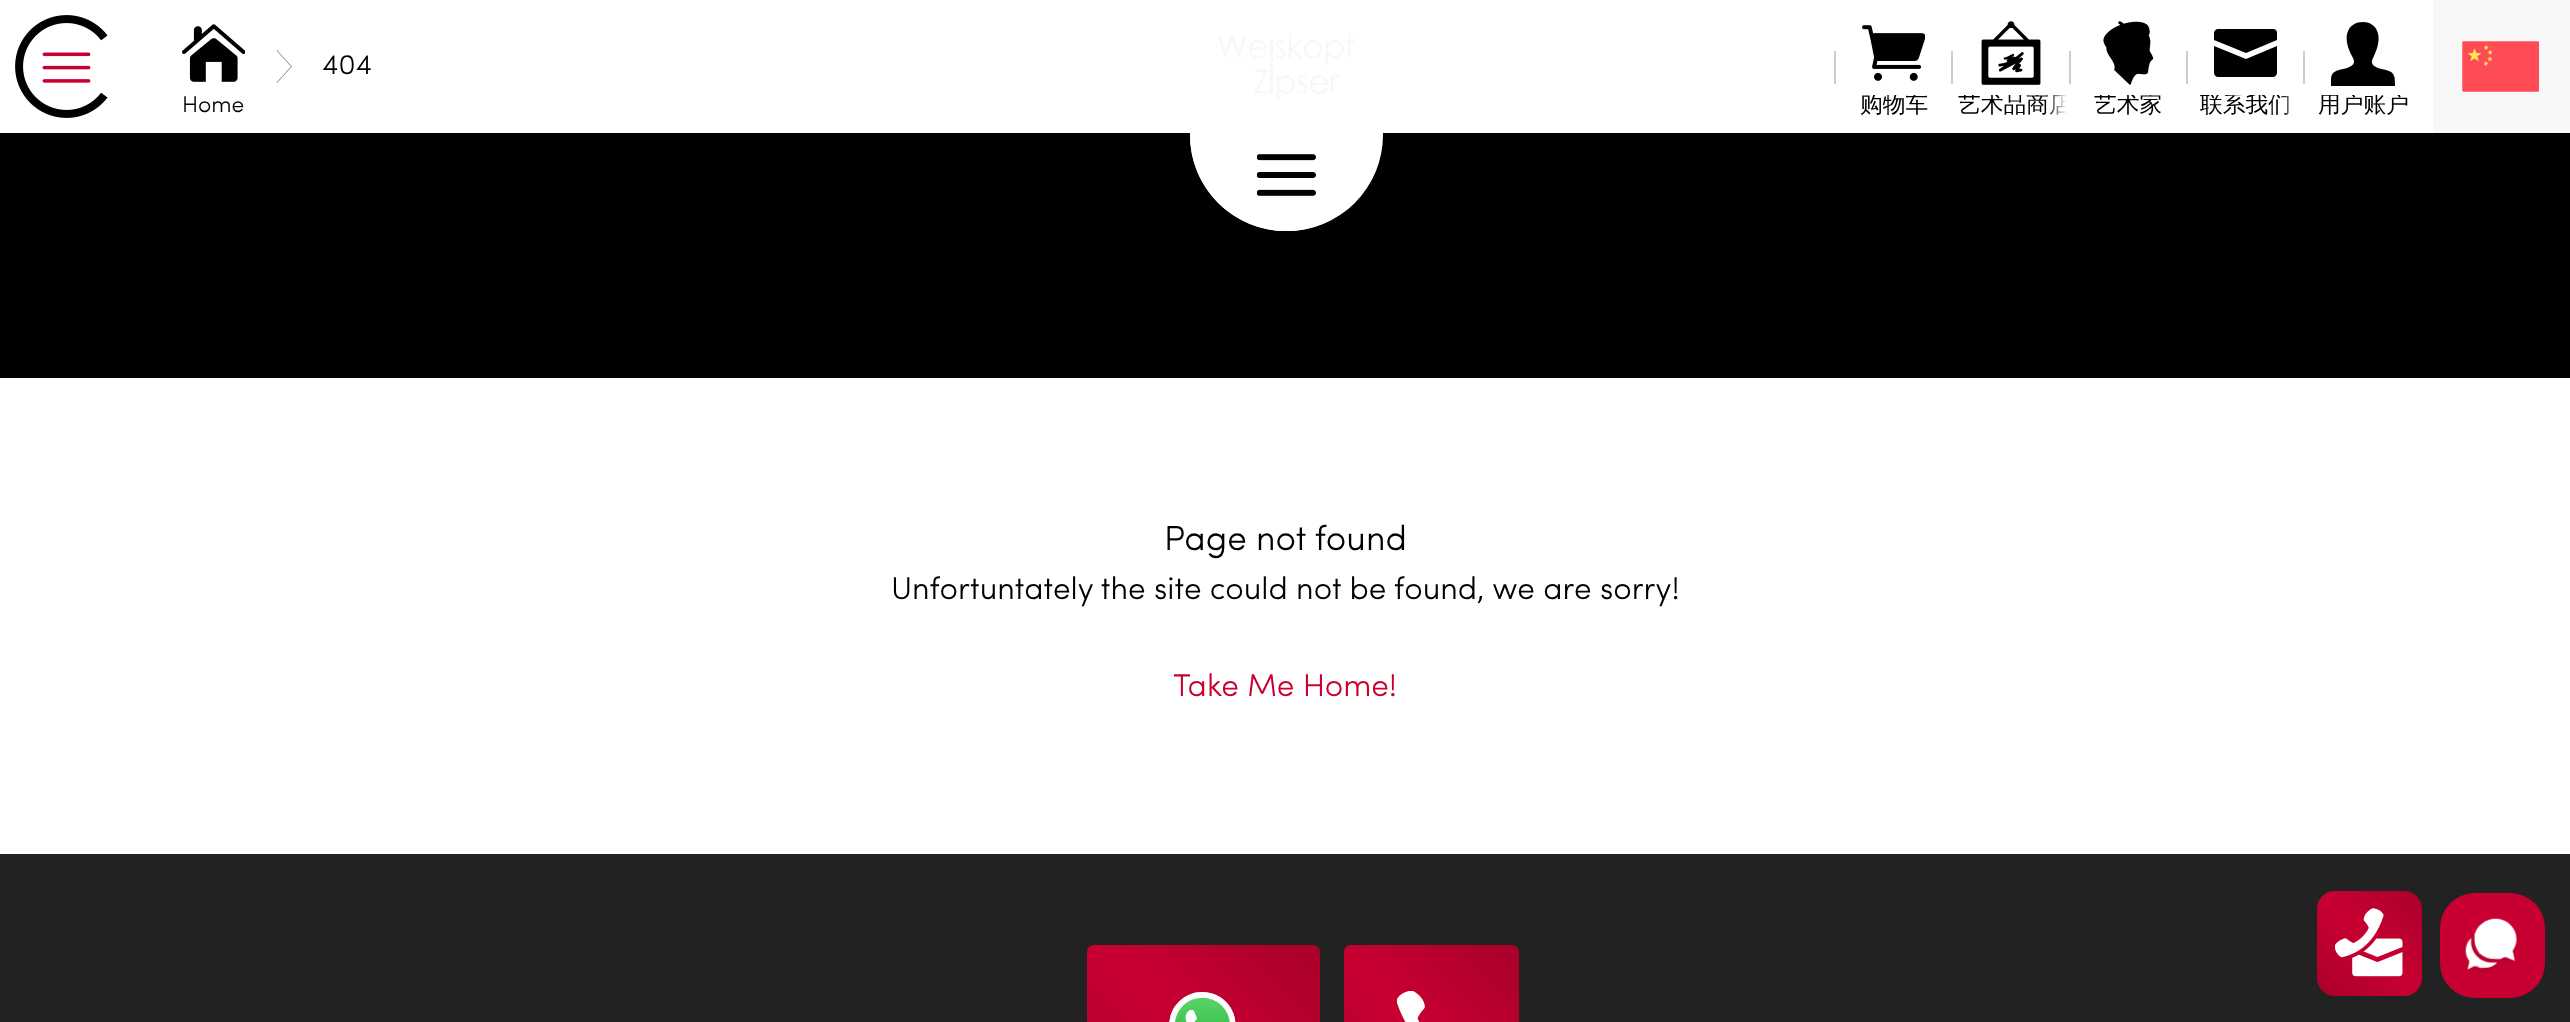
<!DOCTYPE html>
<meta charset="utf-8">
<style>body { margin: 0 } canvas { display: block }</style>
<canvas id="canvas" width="2570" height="1022"></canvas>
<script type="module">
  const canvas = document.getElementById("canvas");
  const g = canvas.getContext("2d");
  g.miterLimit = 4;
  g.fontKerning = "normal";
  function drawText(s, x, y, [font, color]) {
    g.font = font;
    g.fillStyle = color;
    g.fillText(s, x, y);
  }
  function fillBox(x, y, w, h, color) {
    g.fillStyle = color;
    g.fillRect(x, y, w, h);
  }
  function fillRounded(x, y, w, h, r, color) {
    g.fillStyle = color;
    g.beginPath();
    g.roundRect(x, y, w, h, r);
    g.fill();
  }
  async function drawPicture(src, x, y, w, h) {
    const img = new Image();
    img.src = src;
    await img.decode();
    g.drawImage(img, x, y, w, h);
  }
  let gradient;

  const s1 = ["300 28px Sofia", "#000000"];
  const s2 = ["300 22.75px Sofia", "#000000"];
  const s3 = ["500 22.75px WenQuanYi Zen Hei", "#000000"];
  const s4 = ["300 35px Sofia", "#000000"];
  const s5 = ["300 31.5px Sofia", "#000000"];
  const s6 = ["300 31.5px Sofia", "#C80032"];

  fillBox(0, 0, 2570, 1022, "#222222");
  fillBox(0, 133, 2570, 245, "#000000");
  await drawPicture("pic1.png", 1190, 133, 156, 98);
  fillRounded(1190, 39, 193, 192, 96, "#FFFFFF");
  await drawPicture("pic2.png", 1257, 154, 59, 42);
  fillBox(0, 0, 2433, 133, "#FFFFFF");
  await drawPicture("pic3.png", 15, 15, 93, 103);
  g.fillStyle = "#808080";
  g.beginPath();
  g.moveTo(292, 66.5);
  g.lineTo(277, 83);
  g.lineTo(276.5, 82.5);
  g.lineTo(291, 66.5);
  g.lineTo(276.5, 50.5);
  g.lineTo(277, 50);
  g.closePath();
  g.fill();
  drawText("404", 322, 74, s1);
  await drawPicture("pic4.png", 182, 24, 63, 58);
  drawText("Home", 182, 112, s2);
  await drawPicture("pic5.png", 1218, 34, 137, 66);
  fillBox(1834, 51, 2, 33, "#CCCCCC");
  await drawPicture("pic6.png", 1862, 25, 63, 56);
  g.save();
  g.beginPath();
  g.rect(1834, 95, 117, 28);
  g.clip();
  drawText("购物车", 1860, 112, s3);
  g.restore();
  fillBox(1951, 51, 2, 33, "#CCCCCC");
  await drawPicture("pic7.png", 1981, 21, 60, 64);
  g.save();
  g.beginPath();
  g.rect(1951, 95, 118, 28);
  g.clip();
  drawText("艺术品商店", 1958, 112, s3);
  g.restore();
  gradient = g.createLinearGradient(2072, 109, 2046, 109);
  gradient.addColorStop(0.2, "#FFFFFF");
  gradient.addColorStop(1, "rgba(255, 255, 255, 0)");
  g.fillStyle = gradient;
  g.fillRect(2046, 95, 23, 20);
  fillBox(2069, 51, 2, 33, "#CCCCCC");
  await drawPicture("pic8.png", 2103, 21, 51, 64);
  g.save();
  g.beginPath();
  g.rect(2069, 95, 117, 28);
  g.clip();
  drawText("艺术家", 2094, 112, s3);
  g.restore();
  fillBox(2186, 51, 2, 33, "#CCCCCC");
  g.save();
  g.beginPath();
  g.rect(2214, 0, 63, 119);
  g.clip();
  g.fillStyle = "#000000";
  g.beginPath();
  g.moveTo(2273, 29);
  g.lineTo(2218, 29);
  g.bezierCurveTo(2216, 29, 2214, 31, 2214, 33);
  g.lineTo(2214, 40);
  g.lineTo(2246, 53);
  g.lineTo(2277, 40);
  g.bezierCurveTo(2277, 37, 2279, 29, 2273, 29);
  g.closePath();
  g.fill();
  g.restore();
  g.fillStyle = "#000000";
  g.beginPath();
  g.moveTo(2214, 46);
  g.lineTo(2214, 73);
  g.bezierCurveTo(2214, 75, 2216, 77, 2218, 77);
  g.lineTo(2273, 77);
  g.bezierCurveTo(2275, 77, 2277, 75, 2277, 73);
  g.lineTo(2277, 46);
  g.lineTo(2246, 59);
  g.closePath();
  g.fill();
  g.save();
  g.beginPath();
  g.rect(2186, 95, 117, 28);
  g.clip();
  drawText("联系我们", 2200, 112, s3);
  g.restore();
  gradient = g.createLinearGradient(2307, 109, 2280, 109);
  gradient.addColorStop(0.2, "#FFFFFF");
  gradient.addColorStop(1, "rgba(255, 255, 255, 0)");
  g.fillStyle = gradient;
  g.fillRect(2280, 95, 9, 20);
  fillBox(2303, 51, 2, 33, "#CCCCCC");
  g.fillStyle = "#000000";
  g.beginPath();
  g.moveTo(2386, 70);
  g.bezierCurveTo(2377, 68, 2369, 66, 2373, 58);
  g.bezierCurveTo(2385, 35, 2376, 22, 2363, 22);
  g.bezierCurveTo(2349, 22, 2340, 35, 2353, 58);
  g.bezierCurveTo(2357, 66, 2348, 68, 2339, 70);
  g.bezierCurveTo(2332, 72, 2331, 75, 2331, 81);
  g.lineTo(2331, 86);
  g.lineTo(2395, 86);
  g.bezierCurveTo(2395, 77, 2395, 72, 2386, 70);
  g.closePath();
  g.fill();
  g.save();
  g.beginPath();
  g.rect(2303, 95, 117, 28);
  g.clip();
  drawText("用户账户", 2318, 112, s3);
  g.restore();
  fillBox(2433, 0, 137, 133, "#F8F8F8");
  await drawPicture("pic9.png", 2462, 41, 77, 51);
  fillBox(0, 378, 2570, 476, "#FFFFFF");
  drawText("Page not found", 1164, 550, s4);
  drawText("Unfortuntately the site could not be found, we are sorry!", 891, 599, s5);
  drawText("Take Me Home!", 1173, 696, s6);
  gradient = g.createLinearGradient(1095, 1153, 1311, 937);
  gradient.addColorStop(0, "#A9002A");
  gradient.addColorStop(0.5, "#C80032");
  gradient.addColorStop(1, "#A9002A");
  g.fillStyle = gradient;
  g.beginPath();
  g.roundRect(1087, 945, 233, 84, 7);
  g.fill();
  await drawPicture("pic10.png", 1169, 992, 67, 30);
  gradient = g.createLinearGradient(1338, 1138, 1525, 951);
  gradient.addColorStop(0, "#A9002A");
  gradient.addColorStop(0.5, "#C80032");
  gradient.addColorStop(1, "#A9002A");
  g.fillStyle = gradient;
  g.beginPath();
  g.roundRect(1344, 945, 175, 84, 7);
  g.fill();
  await drawPicture("pic11.png", 1397, 991, 28, 31);
  gradient = g.createLinearGradient(2317, 996, 2422, 891);
  gradient.addColorStop(0, "#A9002A");
  gradient.addColorStop(0.5, "#C80032");
  gradient.addColorStop(1, "#A9002A");
  g.fillStyle = gradient;
  g.beginPath();
  g.roundRect(2317, 891, 105, 105, 18);
  g.fill();
  await drawPicture("pic12.png", 2335, 908, 68, 69);
  fillRounded(2440, 893, 105, 105, 35, "#C80032");
  await drawPicture("pic13.png", 2464, 918, 55, 56);
</script>
